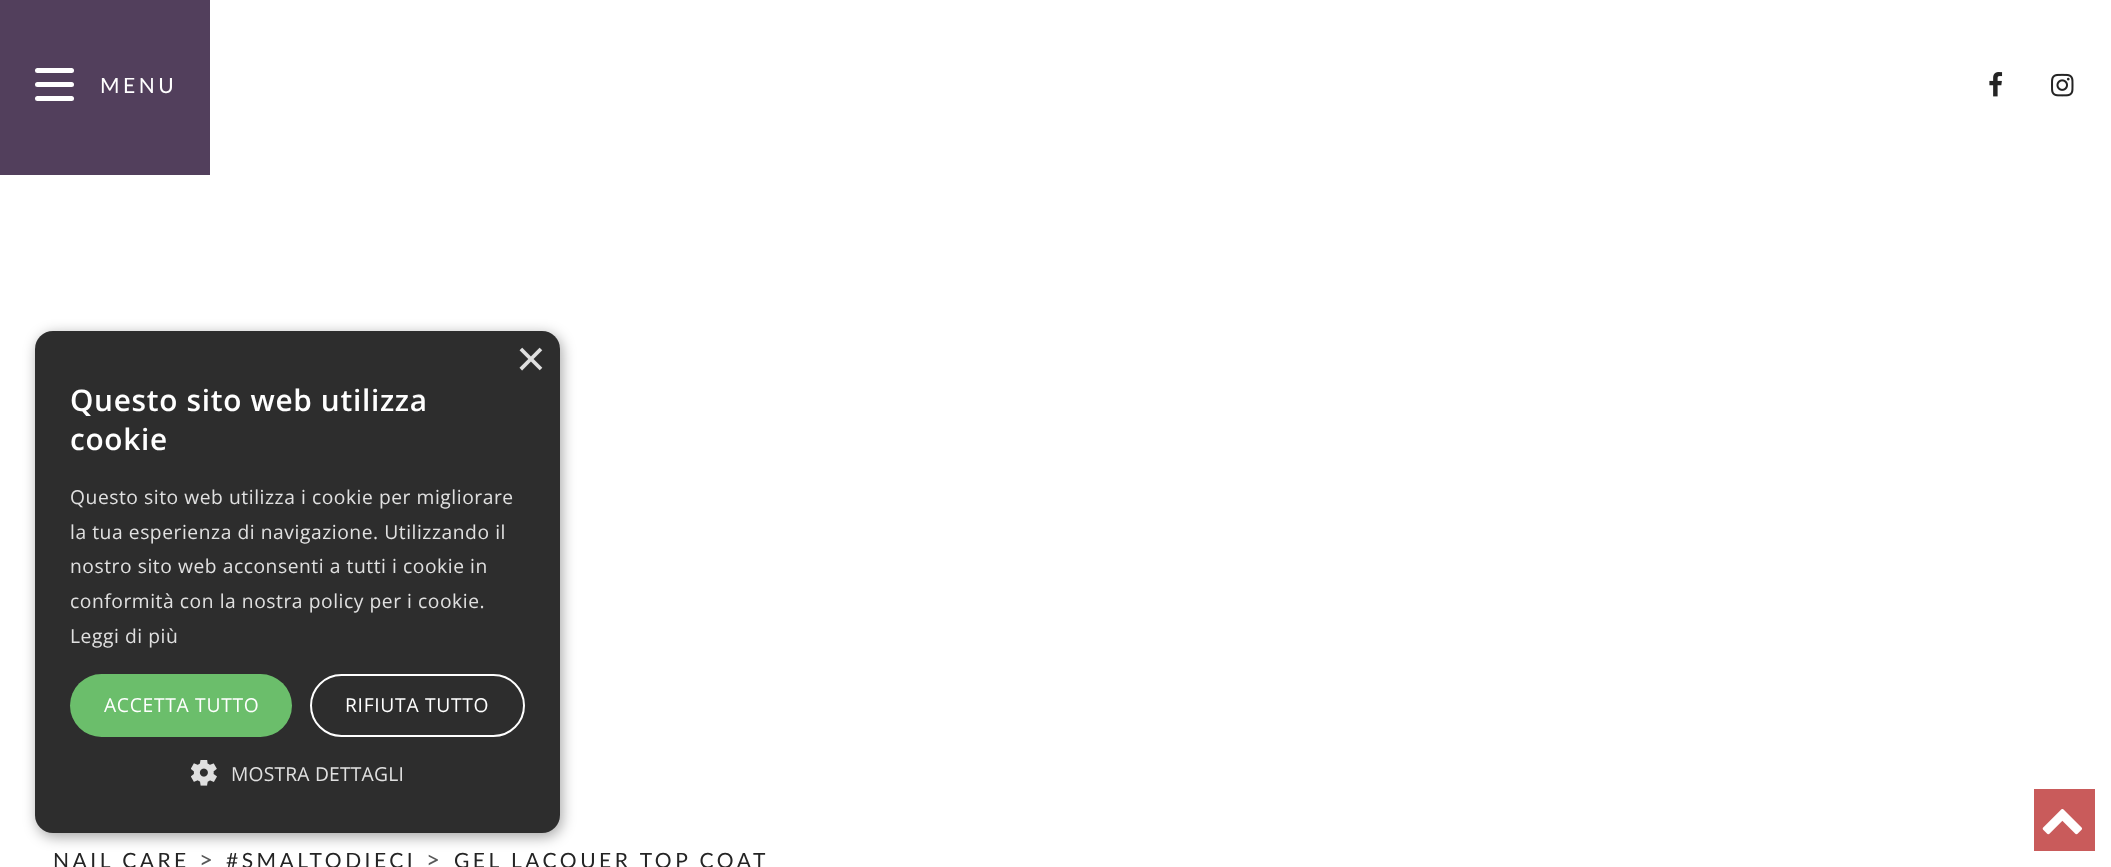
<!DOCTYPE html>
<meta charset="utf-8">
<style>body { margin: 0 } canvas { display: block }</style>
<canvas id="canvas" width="2111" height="867"></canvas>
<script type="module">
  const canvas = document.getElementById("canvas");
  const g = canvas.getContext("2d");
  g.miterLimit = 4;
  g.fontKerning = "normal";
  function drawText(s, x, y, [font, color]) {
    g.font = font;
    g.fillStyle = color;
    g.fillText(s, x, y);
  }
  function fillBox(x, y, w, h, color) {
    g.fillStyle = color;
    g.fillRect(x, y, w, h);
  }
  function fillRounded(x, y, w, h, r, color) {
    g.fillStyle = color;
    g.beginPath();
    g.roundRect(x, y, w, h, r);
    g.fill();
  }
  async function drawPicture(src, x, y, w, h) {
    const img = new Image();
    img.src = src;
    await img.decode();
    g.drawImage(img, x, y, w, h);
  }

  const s1 = ["21px Lato", "#FFFFFF"];
  const s2 = ["21px Lato", "#242424"];
  const s3 = ["24px Lato", "#585858"];
  const s4 = ["51px Liberation Sans", "#E0E0E0"];
  const s5 = ["600 29.75px Open Sans", "#FFFFFF"];
  const s6 = ["19.25px Open Sans", "#E0E0E0"];
  const s7 = ["19.25px Open Sans", "#FFFFFF"];

  fillBox(0, 0, 2111, 867, "#FFFFFF");
  fillBox(0, 0, 210, 175, "#523F5C");
  fillRounded(35, 68, 39, 5, 2.5, "#FFFFFF");
  g.beginPath();
  g.roundRect(35, 82, 19, 5, [2.5, 0, 0, 2.5]);
  g.fill();
  g.beginPath();
  g.roundRect(54, 82, 20, 5, [0, 2.5, 2.5, 0]);
  g.fill();
  fillRounded(35, 96, 39, 5, 2.5, "#FFFFFF");
  g.letterSpacing = "3.5px";
  drawText("MENU", 100, 93, s1);
  await drawPicture("pic1.png", 1989, 72, 14, 25);
  await drawPicture("pic2.png", 2051, 73, 23, 24);
  fillBox(2034, 789, 61, 62, "#C95B5B");
  await drawPicture("pic3.png", 2042, 809, 40, 26);
  drawText("NAIL CARE", 53, 868, s2);
  drawText(">", 199, 868, s3);
  drawText("#SMALTODIECI", 226, 868, s2);
  drawText(">", 426, 868, s3);
  drawText("GEL LACQUER TOP COAT", 454, 868, s2);
  g.fillStyle = "rgba(0, 0, 0, 0.35)";
  g.filter = "blur(7px)";
  g.beginPath();
  g.roundRect(37, 334, 525, 503, 18);
  g.fill();
  g.filter = "none";
  fillRounded(35, 331, 525, 502, 18, "#2D2D2D");
  g.letterSpacing = "0px";
  drawText("×", 516, 376, s4);
  g.letterSpacing = "0.7px";
  drawText("Questo sito web utilizza", 70, 411, s5);
  drawText("cookie", 70, 450, s5);
  g.letterSpacing = "0.55px";
  drawText("Questo sito web utilizza i cookie per migliorare", 70, 504, s6);
  drawText("la tua esperienza di navigazione. Utilizzando il", 70, 539, s6);
  drawText("nostro sito web acconsenti a tutti i cookie in", 70, 573, s6);
  drawText("conformità con la nostra policy per i cookie.", 70, 608, s6);
  drawText("Leggi di più", 70, 643, s6);
  fillRounded(70, 674, 222, 63, 31.5, "#6BBE6B");
  g.letterSpacing = "0.7px";
  drawText("ACCETTA TUTTO", 104, 712, s7);
  g.beginPath();
  g.roundRect(311, 675, 213, 61, 30.5);
  g.strokeStyle = "#FFFFFF";
  g.lineWidth = 2;
  g.stroke();
  drawText("RIFIUTA TUTTO", 345, 712, s7);
  await drawPicture("pic4.png", 191, 760, 26, 26);
  g.letterSpacing = "0.2px";
  drawText("MOSTRA DETTAGLI", 231, 781, s6);
</script>
